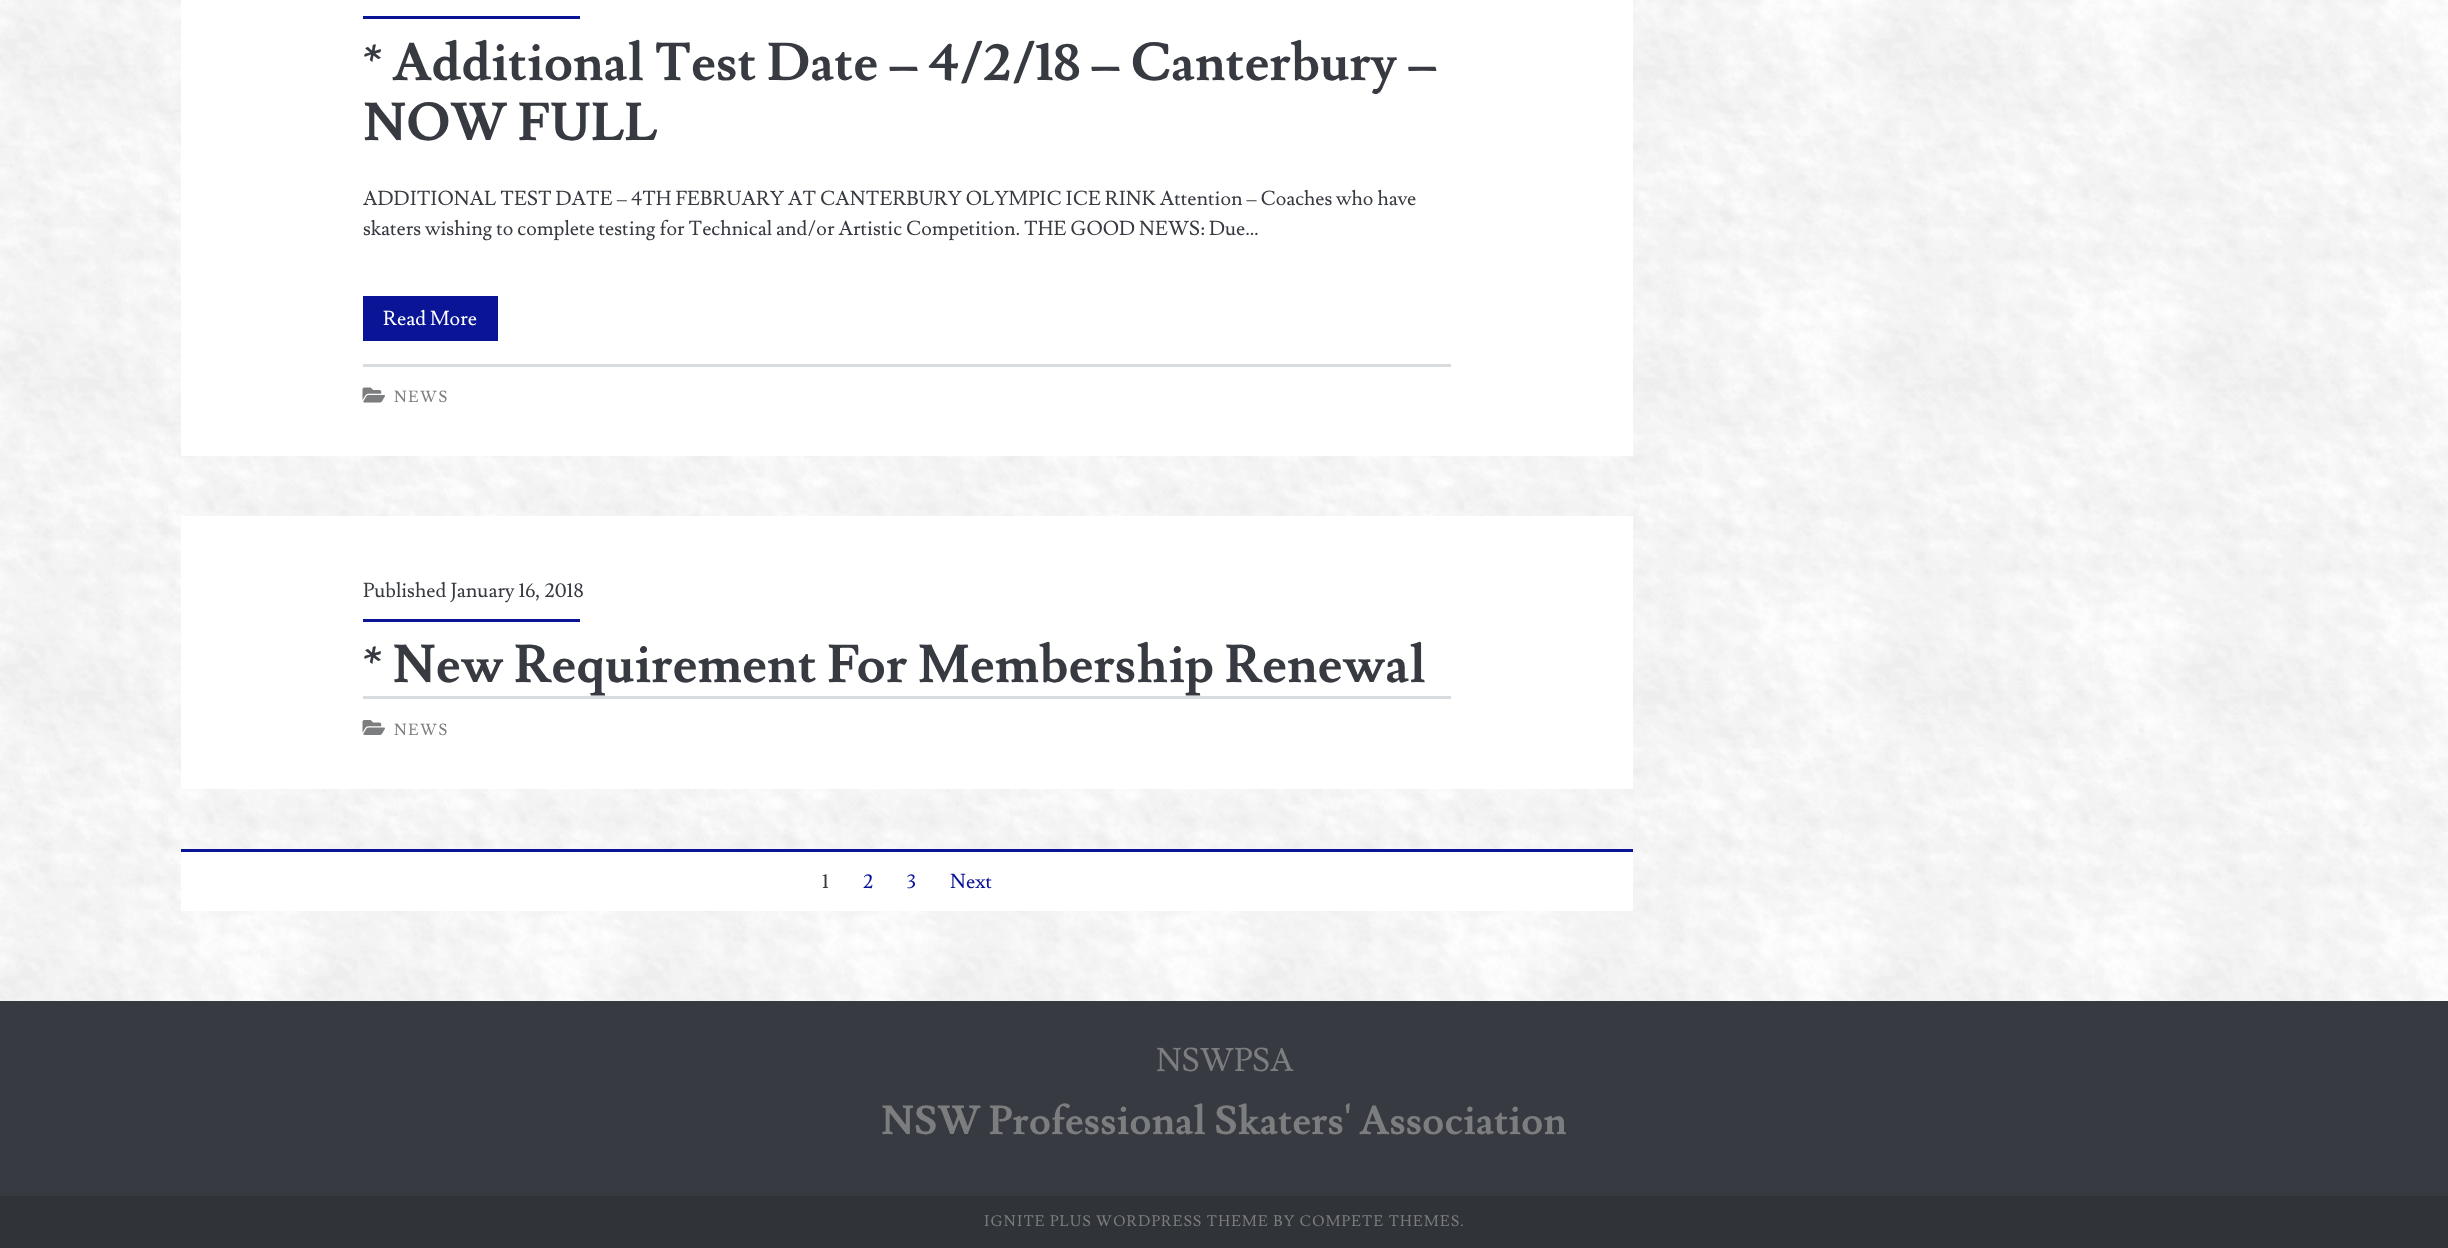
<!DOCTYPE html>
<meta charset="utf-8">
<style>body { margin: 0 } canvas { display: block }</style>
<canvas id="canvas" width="2448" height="1248"></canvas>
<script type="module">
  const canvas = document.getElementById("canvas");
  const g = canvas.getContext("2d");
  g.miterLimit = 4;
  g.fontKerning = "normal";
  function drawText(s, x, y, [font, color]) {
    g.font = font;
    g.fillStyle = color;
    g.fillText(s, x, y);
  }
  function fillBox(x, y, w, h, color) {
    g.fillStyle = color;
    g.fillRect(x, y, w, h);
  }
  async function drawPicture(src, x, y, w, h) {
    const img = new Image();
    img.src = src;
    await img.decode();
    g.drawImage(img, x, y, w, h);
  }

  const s1 = ["bold 52.5px Lusitana", "#373B41"];
  const s2 = ["20px Lusitana", "#373B41"];
  const s3 = ["20px Lusitana", "#FFFFFF"];
  const s4 = ["16px Lusitana", "#7C7D7F"];
  const s5 = ["20px Lusitana", "#091496"];
  const s6 = ["32.5px Lusitana", "#7C7D7F"];
  const s7 = ["bold 40px Lusitana", "#7C7D7F"];
  const s8 = ["15px Lusitana", "#7C7D7F"];

  fillBox(0, 0, 2448, 1248, "#FFFFFF");
  await drawPicture("pic1.png", 0, 0, 2448, 1001);
  fillBox(181, 0, 1452, 456, "#FFFFFF");
  fillBox(363, 16, 217, 3, "#091496");
  drawText("* Additional Test Date – 4/2/18 – Canterbury –", 363, 80, s1);
  drawText("NOW FULL", 363, 140, s1);
  fillBox(363, 364, 1088, 3, "#D9DCDF");
  drawText("ADDITIONAL TEST DATE – 4TH FEBRUARY AT CANTERBURY OLYMPIC ICE RINK Attention – Coaches who have", 363, 205, s2);
  drawText("skaters wishing to complete testing for Technical and/or Artistic Competition. THE GOOD NEWS: Due…", 363, 235, s2);
  fillBox(363, 296, 135, 45, "#091496");
  drawText("Read More", 383, 325, s3);
  await drawPicture("pic2.png", 362, 387, 23, 16);
  g.letterSpacing = "1.5px";
  drawText("NEWS", 394, 402, s4);
  fillBox(181, 516, 1452, 273, "#FFFFFF");
  g.letterSpacing = "0px";
  drawText("Published January 16, 2018", 363, 597, s2);
  fillBox(363, 619, 217, 3, "#091496");
  drawText("* New Requirement For Membership Renewal", 363, 682, s1);
  fillBox(363, 696, 1088, 3, "#D9DCDF");
  await drawPicture("pic3.png", 362, 720, 23, 15);
  g.letterSpacing = "1.5px";
  drawText("NEWS", 394, 735, s4);
  fillBox(181, 852, 1452, 59, "#FFFFFF");
  fillBox(181, 849, 1452, 3, "#091496");
  g.letterSpacing = "0px";
  drawText("1", 822, 888, s2);
  drawText("2", 863, 888, s5);
  drawText("3", 907, 888, s5);
  drawText("Next", 950, 888, s5);
  fillBox(0, 1001, 2448, 195, "#373B41");
  drawText("NSWPSA", 1156, 1071, s6);
  drawText("NSW Professional Skaters' Association", 881, 1134, s7);
  fillBox(0, 1196, 2448, 52, "#303338");
  g.letterSpacing = "1.2px";
  drawText("IGNITE PLUS WORDPRESS THEME BY COMPETE THEMES.", 984, 1226, s8);
</script>
